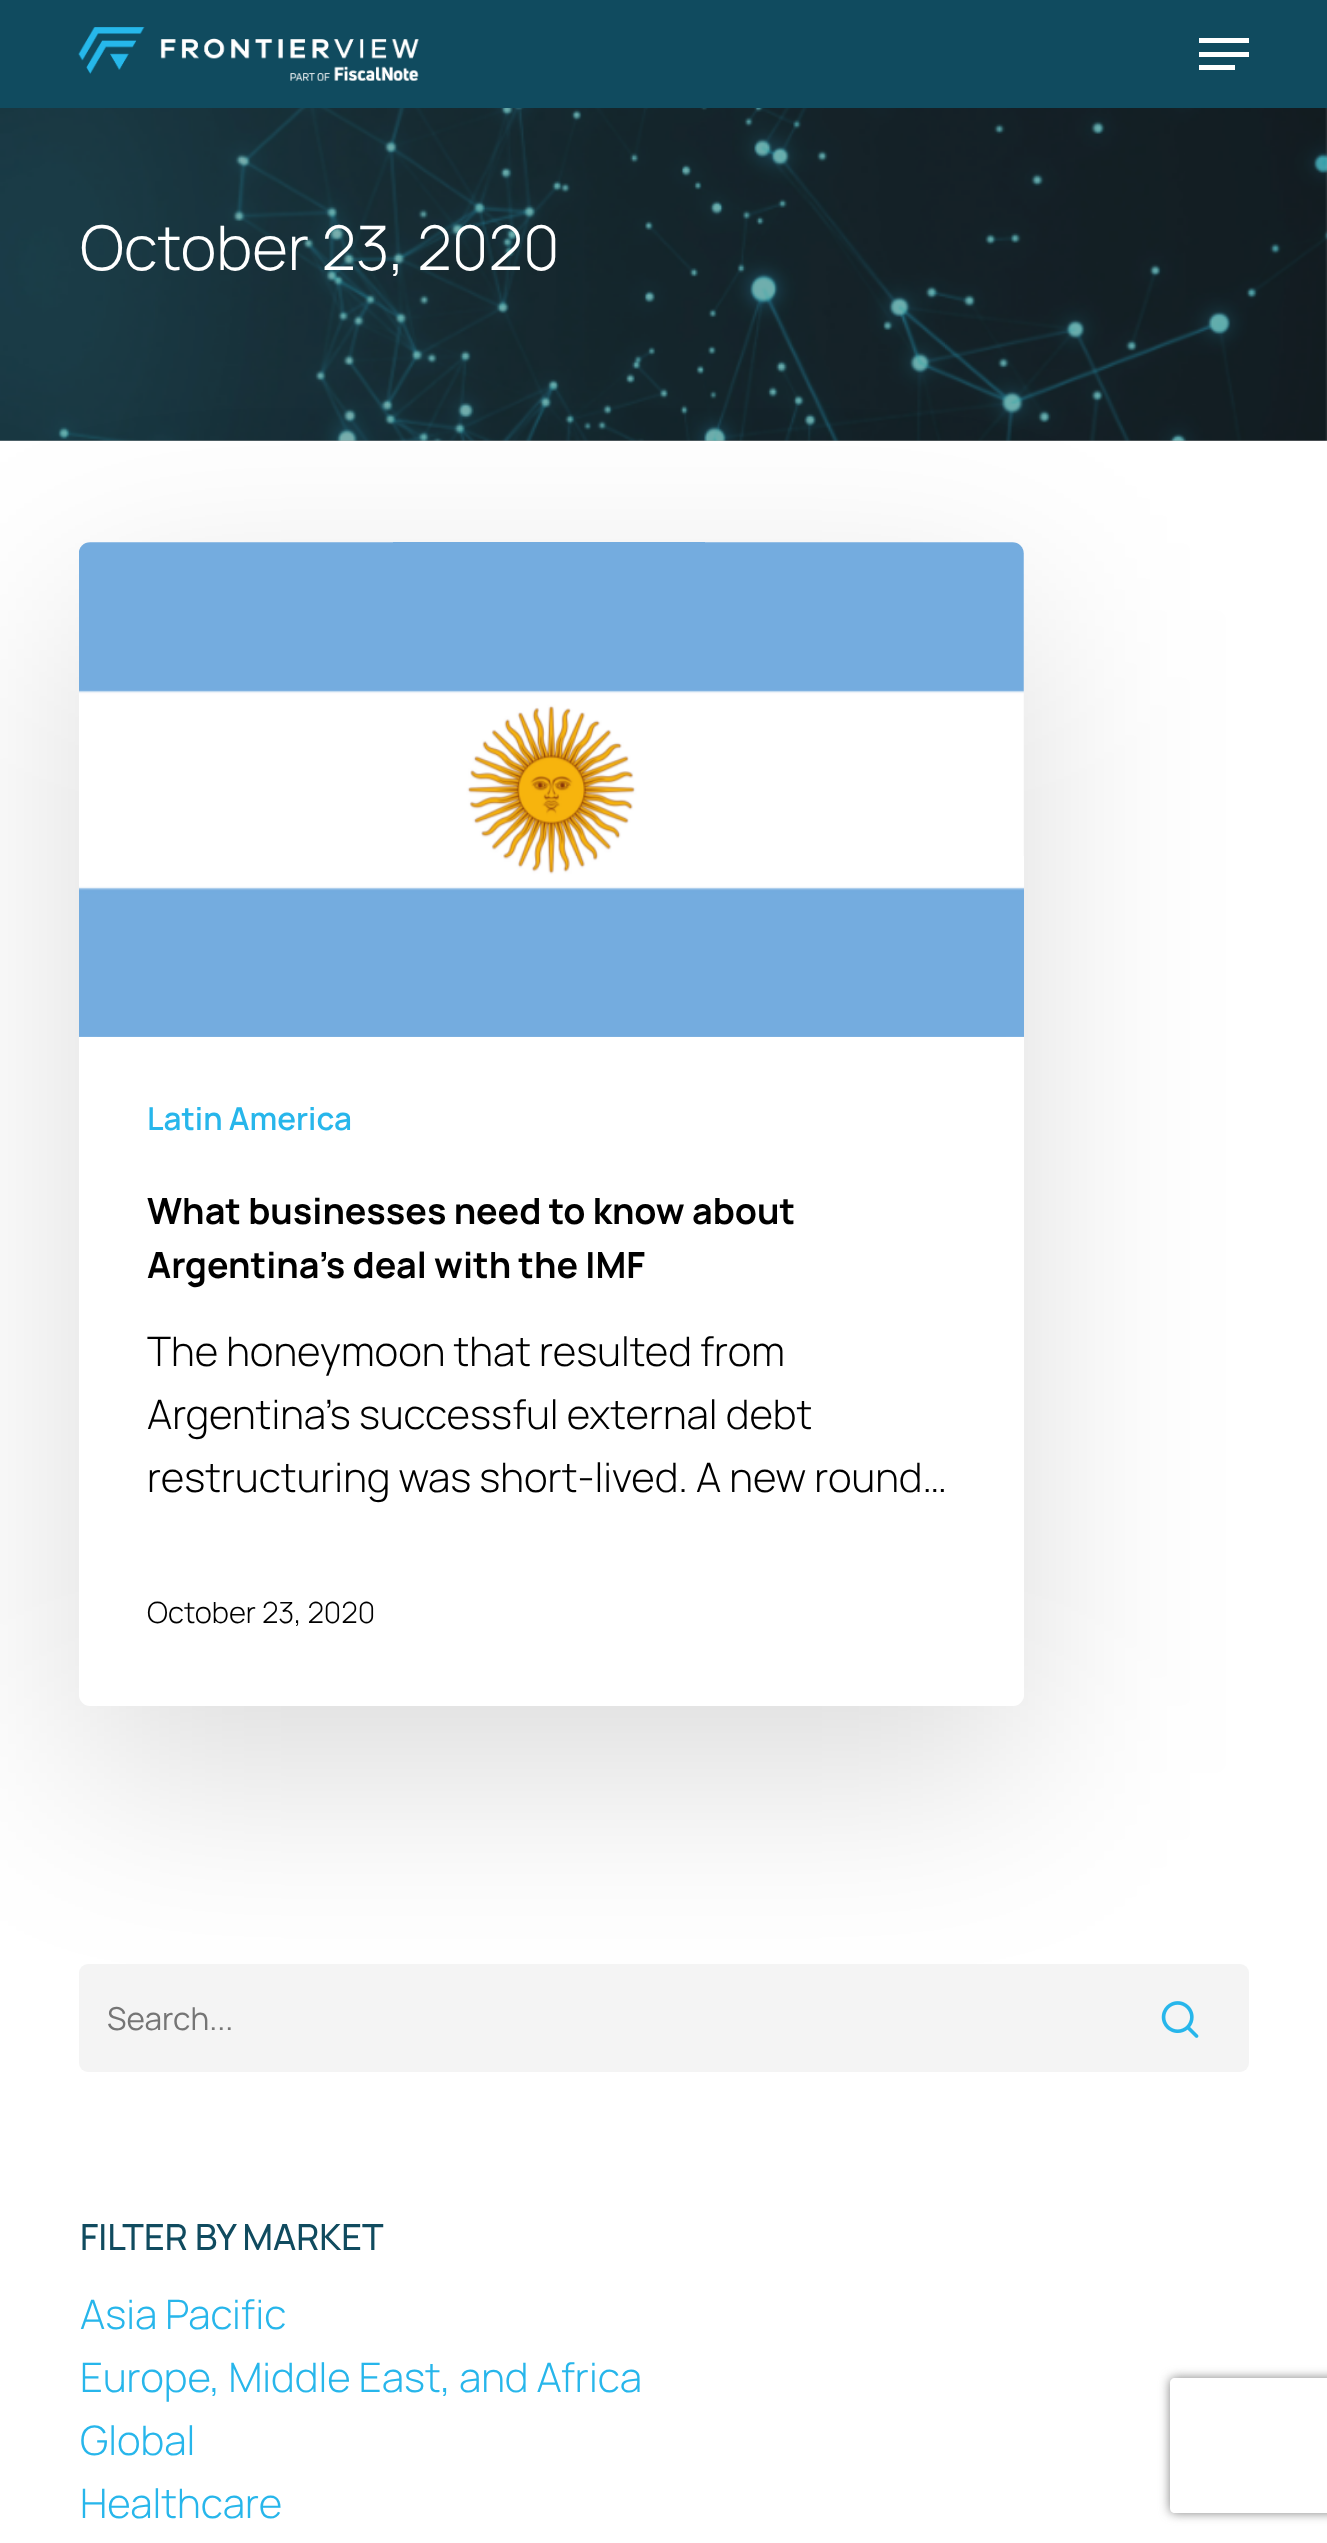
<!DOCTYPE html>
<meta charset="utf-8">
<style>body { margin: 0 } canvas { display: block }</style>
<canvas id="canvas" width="1327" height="2543"></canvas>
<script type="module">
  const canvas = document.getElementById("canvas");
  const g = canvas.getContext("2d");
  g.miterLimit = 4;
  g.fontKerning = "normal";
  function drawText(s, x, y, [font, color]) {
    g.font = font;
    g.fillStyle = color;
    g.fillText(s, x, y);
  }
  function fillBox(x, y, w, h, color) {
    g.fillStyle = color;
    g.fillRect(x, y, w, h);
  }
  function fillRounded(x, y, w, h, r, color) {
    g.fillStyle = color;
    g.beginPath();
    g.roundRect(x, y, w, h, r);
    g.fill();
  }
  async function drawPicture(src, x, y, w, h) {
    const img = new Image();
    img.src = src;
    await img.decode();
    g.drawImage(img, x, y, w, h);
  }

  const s1 = ["300 61.5px Manrope", "#FFFFFF"];
  const s2 = ["600 31.5px Manrope", "#27B6EB"];
  const s3 = ["bold 36px Manrope", "#000000"];
  const s4 = ["300 40.5px Manrope", "#000000"];
  const s5 = ["300 29.25px Manrope", "#000000"];
  const s6 = ["31.5px Manrope", "#757575"];
  const s7 = ["500 36px Manrope", "#104B5F"];
  const s8 = ["300 40.5px Manrope", "#27B6EB"];

  fillBox(0, 0, 1327, 2543, "#FFFFFF");
  fillBox(0, 108, 1327, 333, "#AFAFAF");
  fillBox(0, 0, 1327, 108, "#104B5F");
  await drawPicture("pic1.png", 78, 27, 341, 54);
  fillBox(1199, 38, 50, 5, "#FFFFFF");
  fillBox(1199, 65, 36, 5, "#FFFFFF");
  fillBox(1199, 52, 50, 5, "#FFFFFF");
  await drawPicture("pic2.png", 0, 108, 1327, 333);
  drawText("October 23, 2020", 80, 270, s1);
  g.fillStyle = "rgba(0, 0, 0, 0.14)";
  g.filter = "blur(101px)";
  g.beginPath();
  g.roundRect(79, 610, 945, 1163, 11);
  g.fill();
  g.filter = "none";
  await drawPicture("pic3.png", 79, 542, 945, 495);
  fillBox(79, 1037, 945, 124, "#FFFFFF");
  drawText("Latin America", 147, 1130, s2);
  g.fillStyle = "#FFFFFF";
  g.beginPath();
  g.roundRect(79, 1161, 945, 545, [0, 0, 11, 11]);
  g.fill();
  drawText("What businesses need to know about", 147, 1224, s3);
  drawText("Argentina’s deal with the IMF", 147, 1278, s3);
  drawText("The honeymoon that resulted from", 147, 1366, s4);
  drawText("Argentina’s successful external debt", 147, 1429, s4);
  drawText("restructuring was short-lived. A new round…", 147, 1492, s4);
  drawText("October 23, 2020", 147, 1623, s5);
  fillRounded(79, 1964, 1170, 108, 9, "#F4F4F4");
  drawText("Search...", 107, 2030, s6);
  await drawPicture("pic4.png", 1161, 2001, 38, 37);
  drawText("FILTER BY MARKET", 80, 2250, s7);
  drawText("Asia Pacific", 80, 2329, s8);
  drawText("Europe, Middle East, and Africa", 80, 2392, s8);
  drawText("Global", 80, 2455, s8);
  drawText("Healthcare", 80, 2518, s8);
  g.save();
  g.beginPath();
  g.moveTo(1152, 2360);
  g.lineTo(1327, 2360);
  g.lineTo(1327, 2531);
  g.lineTo(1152, 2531);
  g.closePath();
  g.moveTo(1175, 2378);
  g.lineTo(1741, 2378);
  g.bezierCurveTo(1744, 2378, 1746, 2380, 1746, 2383);
  g.lineTo(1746, 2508);
  g.bezierCurveTo(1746, 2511, 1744, 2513, 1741, 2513);
  g.lineTo(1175, 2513);
  g.bezierCurveTo(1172, 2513, 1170, 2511, 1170, 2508);
  g.lineTo(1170, 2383);
  g.bezierCurveTo(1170, 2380, 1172, 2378, 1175, 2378);
  g.closePath();
  g.clip("evenodd");
  g.fillStyle = "#808080";
  g.filter = "blur(5.5px)";
  g.beginPath();
  g.roundRect(1170, 2378, 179, 135, 5);
  g.fill();
  g.filter = "none";
  g.restore();
</script>
